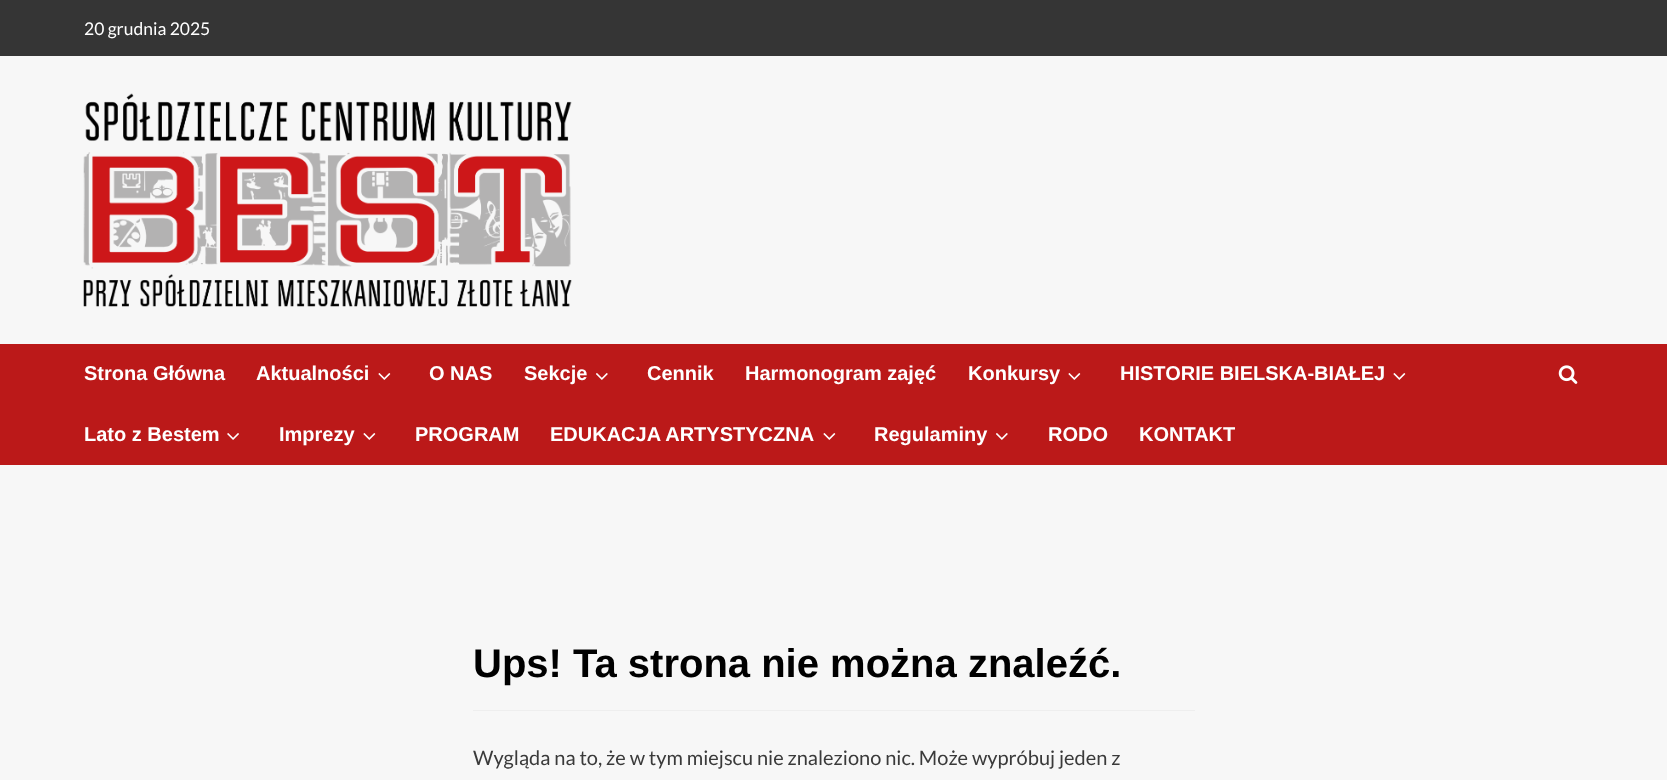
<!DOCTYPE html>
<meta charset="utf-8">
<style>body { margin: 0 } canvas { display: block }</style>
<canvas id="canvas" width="1667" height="780"></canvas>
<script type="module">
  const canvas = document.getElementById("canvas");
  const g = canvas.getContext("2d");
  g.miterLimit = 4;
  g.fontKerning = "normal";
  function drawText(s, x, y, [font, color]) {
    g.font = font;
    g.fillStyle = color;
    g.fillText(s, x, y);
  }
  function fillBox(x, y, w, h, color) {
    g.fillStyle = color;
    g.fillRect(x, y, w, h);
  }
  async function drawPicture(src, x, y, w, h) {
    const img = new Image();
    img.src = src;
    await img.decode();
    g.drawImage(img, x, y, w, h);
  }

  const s1 = ["17.5px Lato", "#FFFFFF"];
  const s2 = ["bold 20px Liberation Sans", "#FFFFFF"];
  const s3 = ["bold 40px Liberation Sans", "#000000"];
  const s4 = ["20px Lato", "#3A3A3A"];

  fillBox(0, 0, 1667, 780, "#F7F7F7");
  fillBox(0, 0, 1667, 56, "#353535");
  drawText("20 grudnia 2025", 84, 35, s1);
  await drawPicture("pic1.png", 83, 93, 489, 214);
  fillBox(0, 344, 1667, 121, "#BB1919");
  drawText("Strona Główna", 84, 380, s2);
  drawText("Aktualności", 256, 380, s2);
  await drawPicture("pic2.png", 378, 373, 13, 7);
  drawText("O NAS", 429, 380, s2);
  drawText("Sekcje", 524, 380, s2);
  await drawPicture("pic3.png", 596, 373, 12, 7);
  drawText("Cennik", 647, 380, s2);
  drawText("Harmonogram zajęć", 745, 380, s2);
  drawText("Konkursy", 968, 380, s2);
  await drawPicture("pic2.png", 1068, 373, 13, 7);
  drawText("HISTORIE BIELSKA-BIAŁEJ", 1120, 380, s2);
  await drawPicture("pic2.png", 1393, 373, 13, 7);
  drawText("Lato z Bestem", 84, 441, s2);
  await drawPicture("pic4.png", 227, 433, 12, 7);
  drawText("Imprezy", 279, 441, s2);
  await drawPicture("pic2.png", 363, 433, 13, 7);
  drawText("PROGRAM", 415, 441, s2);
  drawText("EDUKACJA ARTYSTYCZNA", 550, 441, s2);
  await drawPicture("pic2.png", 823, 433, 13, 7);
  drawText("Regulaminy", 874, 441, s2);
  await drawPicture("pic3.png", 996, 433, 12, 7);
  drawText("RODO", 1048, 441, s2);
  drawText("KONTAKT", 1139, 441, s2);
  await drawPicture("pic5.png", 1558, 365, 20, 19);
  fillBox(473, 710, 722, 1, "#EEEEEE");
  drawText("Ups! Ta strona nie można znaleźć.", 473, 677, s3);
  drawText("Wygląda na to, że w tym miejscu nie znaleziono nic. Może wypróbuj jeden z", 473, 765, s4);
</script>
